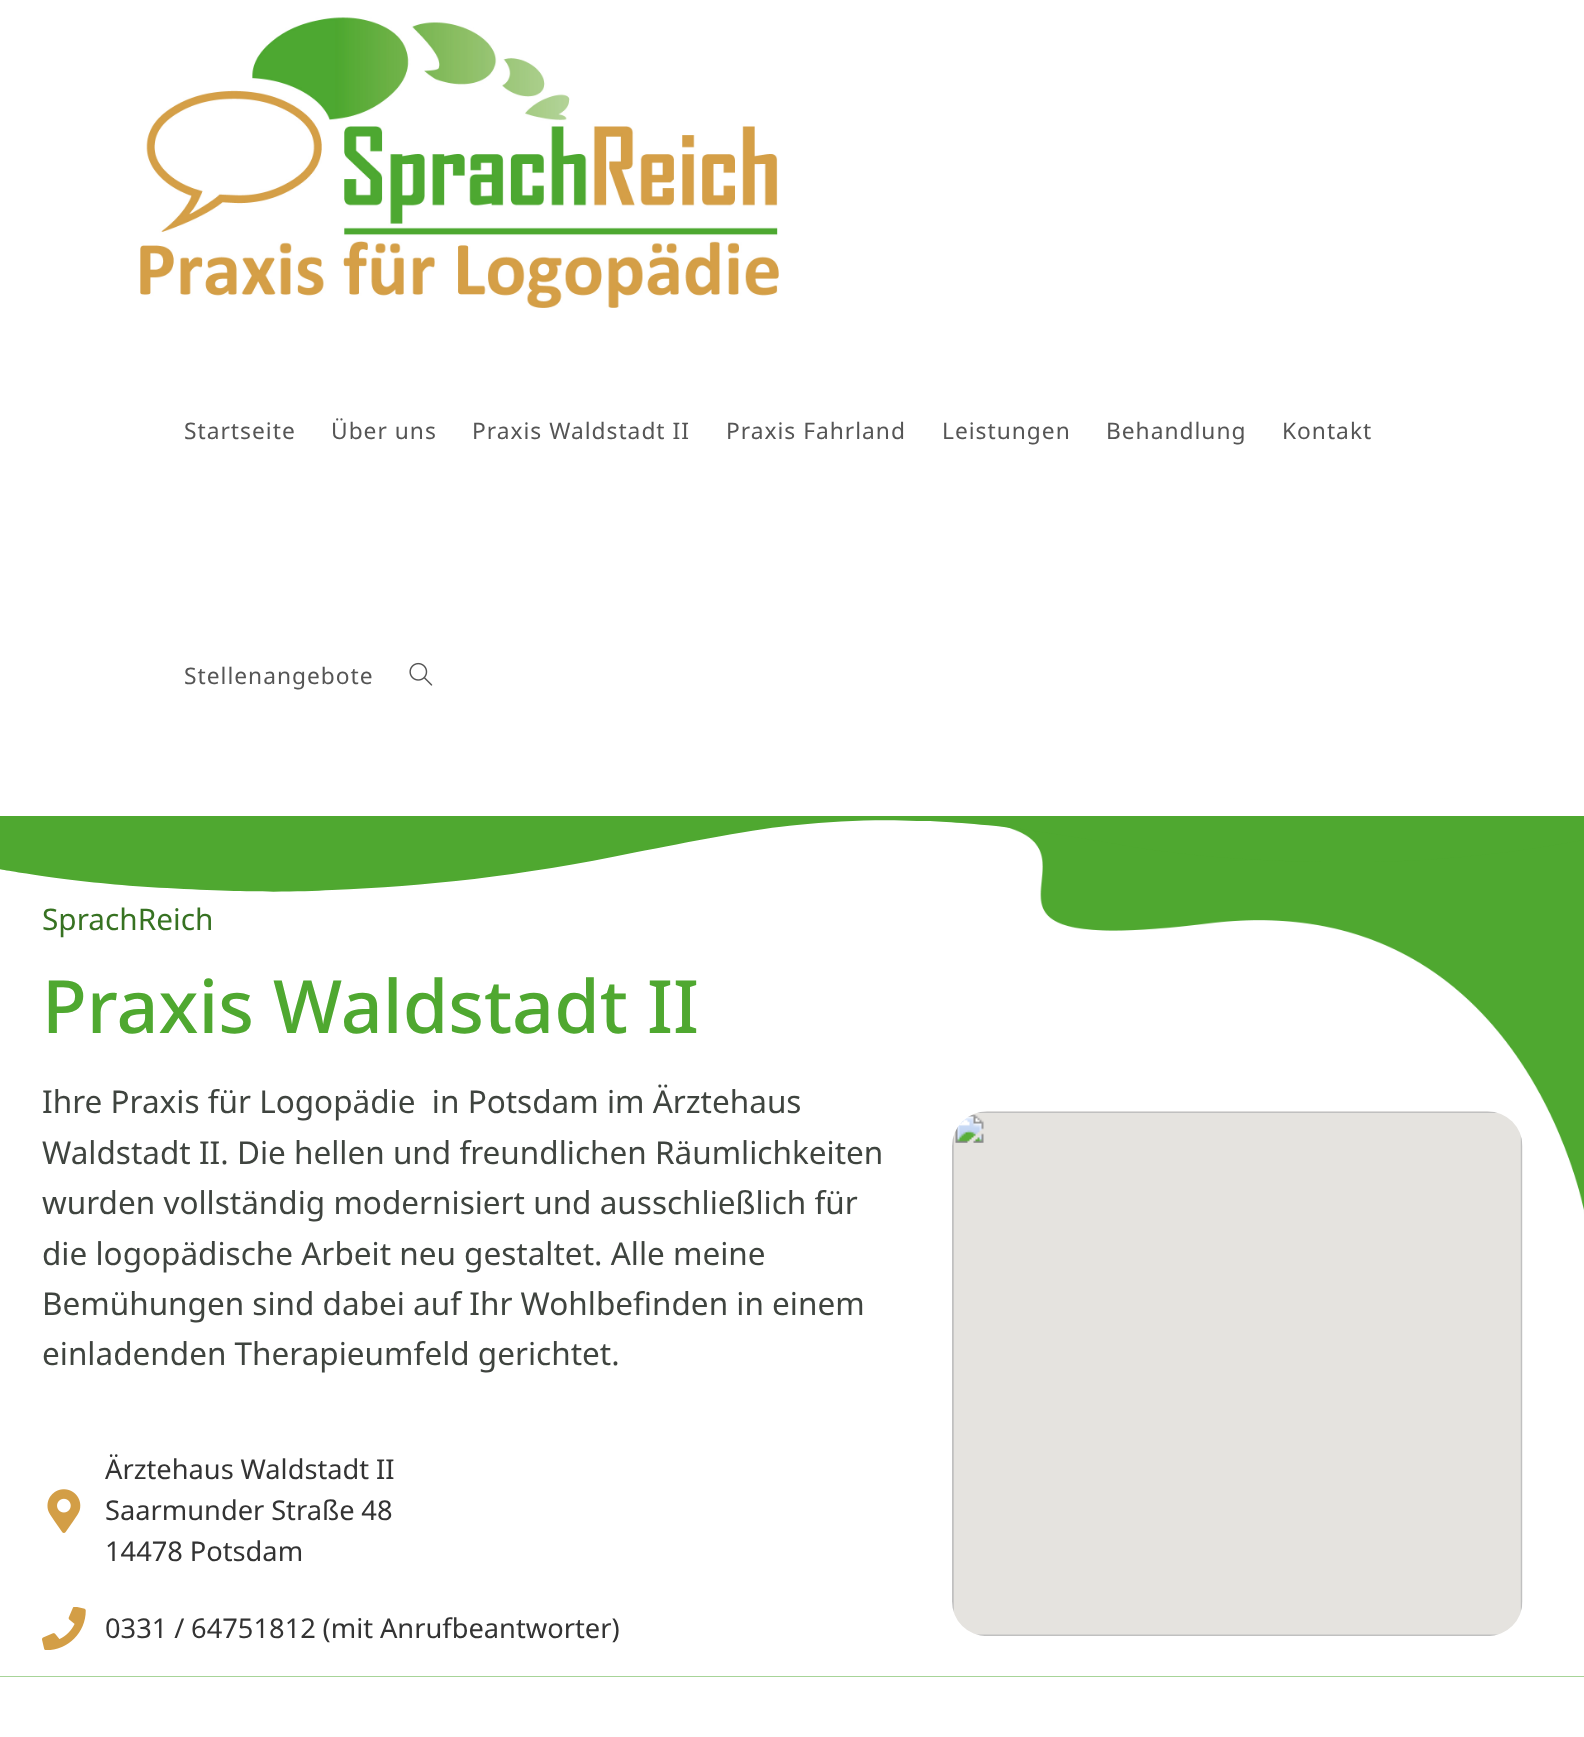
<!DOCTYPE html>
<meta charset="utf-8">
<style>body { margin: 0 } canvas { display: block }</style>
<canvas id="canvas" width="1584" height="1737"></canvas>
<script type="module">
  const canvas = document.getElementById("canvas");
  const g = canvas.getContext("2d");
  g.miterLimit = 4;
  g.fontKerning = "normal";
  function drawText(s, x, y, [font, color]) {
    g.font = font;
    g.fillStyle = color;
    g.fillText(s, x, y);
  }
  function fillBox(x, y, w, h, color) {
    g.fillStyle = color;
    g.fillRect(x, y, w, h);
  }
  async function drawPicture(src, x, y, w, h) {
    const img = new Image();
    img.src = src;
    await img.decode();
    g.drawImage(img, x, y, w, h);
  }

  const s1 = ["22.75px Noto Sans", "#555555"];
  const s2 = ["29.75px Noto Sans", "#377222"];
  const s3 = ["500 73.5px Noto Sans", "#4FA830"];
  const s4 = ["31.5px Noto Sans", "#3F443F"];
  const s5 = ["27.25px Noto Sans Adlam", "#333333"];

  fillBox(0, 0, 1584, 1737, "#FFFFFF");
  await drawPicture("pic1.png", 140, 17, 639, 291);
  g.letterSpacing = "1px";
  drawText("Startseite", 184, 439, s1);
  drawText("Über uns", 331, 439, s1);
  drawText("Praxis Waldstadt II", 472, 439, s1);
  drawText("Praxis Fahrland", 726, 439, s1);
  drawText("Leistungen", 942, 439, s1);
  drawText("Behandlung", 1106, 439, s1);
  drawText("Kontakt", 1282, 439, s1);
  drawText("Stellenangebote", 184, 684, s1);
  await drawPicture("pic2.png", 409, 662, 24, 24);
  fillBox(0, 826, 1584, 851, "#4FA830");
  await drawPicture("pic3.png", 0, 820, 1584, 857);
  g.beginPath();
  g.moveTo(917, 821);
  g.bezierCurveTo(881, 819, 835, 821, 797, 825);
  g.bezierCurveTo(759, 828, 684, 843, 637, 852);
  g.bezierCurveTo(517, 877, 425, 886, 332, 890);
  g.bezierCurveTo(294, 892, 254, 893, 167, 888);
  g.bezierCurveTo(80, 884, -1, 869, -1, 869);
  g.lineTo(-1, 816);
  g.lineTo(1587, 816);
  g.lineTo(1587, 839);
  g.bezierCurveTo(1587, 839, 1472, 864, 1335, 862);
  g.bezierCurveTo(1273, 862, 1188, 857, 1122, 845);
  g.bezierCurveTo(1089, 839, 1039, 831, 996, 826);
  g.bezierCurveTo(953, 822, 933, 821, 917, 821);
  g.closePath();
  g.fill();
  g.letterSpacing = "0px";
  drawText("SprachReich", 42, 930, s2);
  drawText("Praxis Waldstadt II", 42, 1033, s3);
  drawText("Ihre Praxis für Logopädie  in Potsdam im Ärztehaus", 42, 1113, s4);
  drawText("Waldstadt II. Die hellen und freundlichen Räumlichkeiten", 42, 1164, s4);
  drawText("wurden vollständig modernisiert und ausschließlich für", 42, 1214, s4);
  drawText("die logopädische Arbeit neu gestaltet. Alle meine", 42, 1265, s4);
  drawText("Bemühungen sind dabei auf Ihr Wohlbefinden in einem", 42, 1315, s4);
  drawText("einladenden Therapieumfeld gerichtet.", 42, 1365, s4);
  await drawPicture("pic4.png", 47, 1489, 34, 44);
  drawText("Ärztehaus Waldstadt II", 105, 1479, s5);
  drawText("Saarmunder Straße 48", 105, 1520, s5);
  drawText("14478 Potsdam", 105, 1561, s5);
  await drawPicture("pic5.png", 42, 1607, 44, 43);
  drawText("0331 / 64751812 (mit Anrufbeantworter)", 105, 1638, s5);
  await drawPicture("pic6.png", 952, 1111, 571, 525);
</script>
